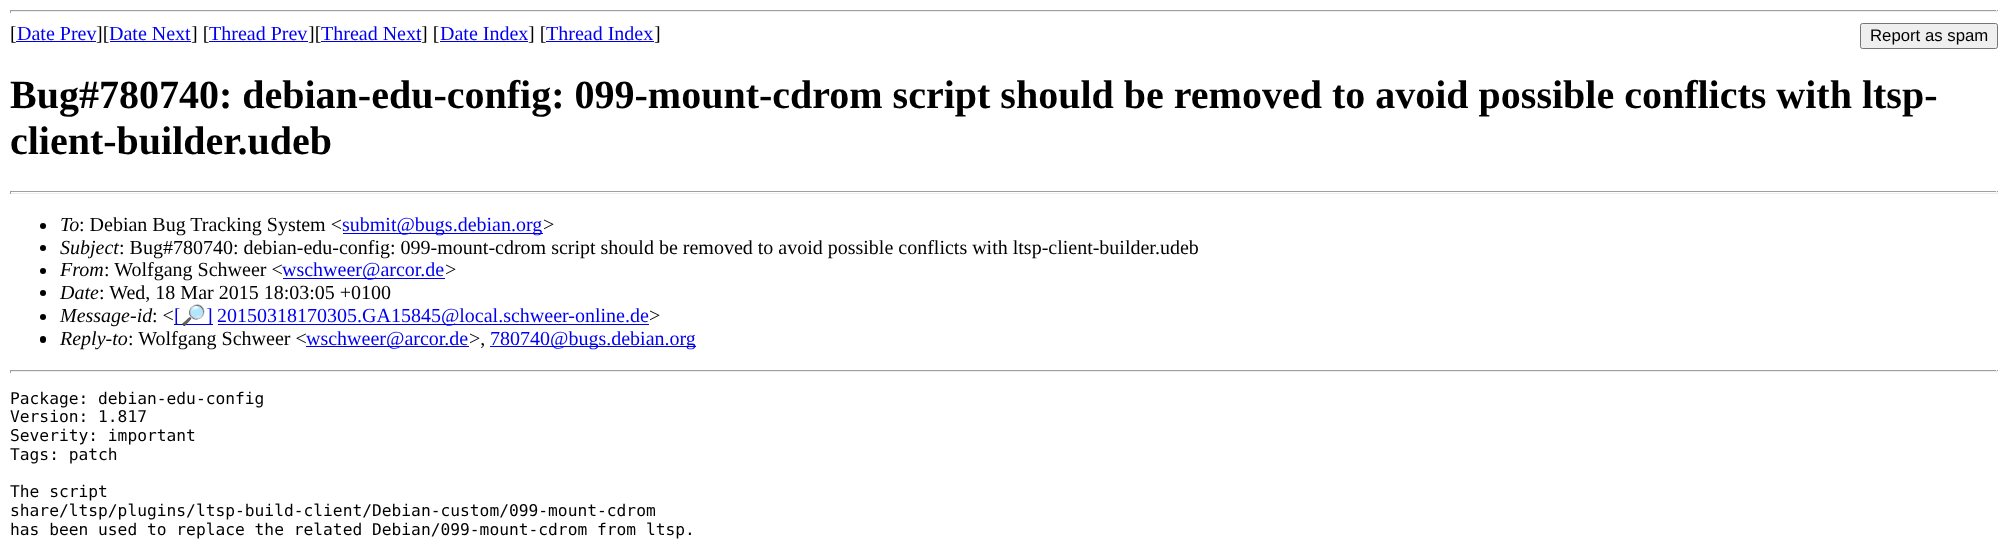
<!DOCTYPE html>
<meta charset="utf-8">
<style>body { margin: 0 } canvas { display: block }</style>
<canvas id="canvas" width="2007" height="541"></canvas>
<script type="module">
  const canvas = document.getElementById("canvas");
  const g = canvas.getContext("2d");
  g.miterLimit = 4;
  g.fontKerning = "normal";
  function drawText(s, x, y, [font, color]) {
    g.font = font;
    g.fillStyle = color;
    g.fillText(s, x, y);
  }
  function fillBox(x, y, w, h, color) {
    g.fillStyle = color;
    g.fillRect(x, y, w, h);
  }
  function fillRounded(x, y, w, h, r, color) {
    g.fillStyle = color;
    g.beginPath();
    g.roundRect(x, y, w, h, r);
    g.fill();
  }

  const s1 = ["20px Liberation Serif", "#000000"];
  const s2 = ["20px Liberation Serif", "#0000EE"];
  const s3 = ["16.75px Liberation Sans", "#000000"];
  const s4 = ["bold 40px Liberation Serif", "#000000"];
  const s5 = ["italic 20px Liberation Serif", "#000000"];
  const s6 = ["20px Noto Color Emoji", "#0000EE"];
  const s7 = ["16.25px DejaVu Sans Mono", "#000000"];

  fillBox(0, 0, 2007, 541, "#FFFFFF");
  fillBox(10, 10, 1988, 1, "#9F9F9F");
  fillBox(1996, 10, 1, 3, "#EEEEEE");
  fillBox(10, 11, 1988, 1, "#EEEEEE");
  fillBox(10, 10, 1, 3, "#9F9F9F");
  drawText("[", 10, 40, s1);
  drawText("Date Prev", 17, 40, s2);
  fillBox(16, 41, 80, 1, "#0000EE");
  drawText("][", 96, 40, s1);
  drawText("Date Next", 109, 40, s2);
  fillBox(110, 41, 81, 1, "#0000EE");
  drawText("] [", 191, 40, s1);
  drawText("Thread Prev", 209, 40, s2);
  fillBox(209, 41, 99, 1, "#0000EE");
  drawText("][", 308, 40, s1);
  drawText("Thread Next", 321, 40, s2);
  fillBox(321, 41, 100, 1, "#0000EE");
  drawText("] [", 421, 40, s1);
  drawText("Date Index", 440, 40, s2);
  fillBox(440, 41, 88, 1, "#0000EE");
  drawText("] [", 528, 40, s1);
  drawText("Thread Index", 546, 40, s2);
  fillBox(546, 41, 108, 1, "#0000EE");
  drawText("]", 654, 40, s1);
  g.fillStyle = "#EFEFEF";
  g.beginPath();
  g.roundRect(1860.5, 23.5, 137, 25, 2);
  g.fill();
  g.strokeStyle = "#767676";
  g.stroke();
  drawText("Report as spam", 1870, 41, s3);
  drawText("Bug#780740: debian-edu-config: 099-mount-cdrom script should be removed to avoid possible conflicts with ltsp-", 10, 108, s4);
  drawText("client-builder.udeb", 10, 154, s4);
  fillBox(10, 191, 1988, 1, "#9F9F9F");
  fillBox(1996, 191, 1, 3, "#EEEEEE");
  fillBox(10, 193, 1988, 1, "#EEEEEE");
  fillBox(10, 191, 1, 3, "#9F9F9F");
  g.fillStyle = "#000000";
  g.beginPath();
  g.arc(43, 226, 3, 0, Math.PI * 2);
  g.fill();
  drawText("To", 60, 231, s5);
  drawText(": Debian Bug Tracking System <", 79, 231, s1);
  fillBox(343, 233, 200, 1, "#0000EE");
  drawText("submit@bugs.debian.org", 342, 231, s2);
  drawText(">", 543, 231, s1);
  g.beginPath();
  g.arc(43, 248, 3, 0, Math.PI * 2);
  g.fill();
  drawText("Subject", 60, 254, s5);
  drawText(": Bug#780740: debian-edu-config: 099-mount-cdrom script should be removed to avoid possible conflicts with ltsp-client-builder.udeb", 119, 254, s1);
  g.beginPath();
  g.arc(43, 271, 3, 0, Math.PI * 2);
  g.fill();
  drawText("From", 60, 276, s5);
  drawText(": Wolfgang Schweer <", 104, 276, s1);
  fillBox(283, 278, 162, 1, "#0000EE");
  drawText("wschweer@arcor.de", 282, 276, s2);
  drawText(">", 445, 276, s1);
  g.beginPath();
  g.arc(43, 293, 3, 0, Math.PI * 2);
  g.fill();
  drawText("Date", 60, 299, s5);
  drawText(": Wed, 18 Mar 2015 18:03:05 +0100", 99, 299, s1);
  g.beginPath();
  g.arc(43, 317, 3, 0, Math.PI * 2);
  g.fill();
  drawText("Message-id", 60, 322, s5);
  drawText(": <", 152, 322, s1);
  fillBox(174, 324, 39, 1, "#0000EE");
  drawText("[", 174, 322, s2);
  drawText("🔎", 181, 322, s6);
  drawText("]", 206, 322, s2);
  fillBox(218, 324, 431, 1, "#0000EE");
  drawText("20150318170305.GA15845@local.schweer-online.de", 217, 322, s2);
  drawText(">", 649, 322, s1);
  fillRounded(40, 336, 6, 7, 3, "#000000");
  drawText("Reply-to", 60, 345, s5);
  drawText(": Wolfgang Schweer <", 128, 345, s1);
  fillBox(306, 346, 163, 1, "#0000EE");
  drawText("wschweer@arcor.de", 306, 345, s2);
  drawText(">,", 469, 345, s1);
  fillBox(490, 346, 206, 1, "#0000EE");
  drawText("780740@bugs.debian.org", 490, 345, s2);
  fillBox(10, 370, 1988, 1, "#9F9F9F");
  fillBox(1996, 370, 1, 3, "#EEEEEE");
  fillBox(10, 371, 1988, 1, "#EEEEEE");
  fillBox(10, 370, 1, 3, "#9F9F9F");
  drawText("Package: debian-edu-config", 10, 404, s7);
  drawText("Version: 1.817", 10, 422, s7);
  drawText("Severity: important", 10, 441, s7);
  drawText("Tags: patch", 10, 460, s7);
  drawText("The script", 10, 497, s7);
  drawText("share/ltsp/plugins/ltsp-build-client/Debian-custom/099-mount-cdrom", 10, 516, s7);
  drawText("has been used to replace the related Debian/099-mount-cdrom from ltsp.", 10, 535, s7);
</script>
